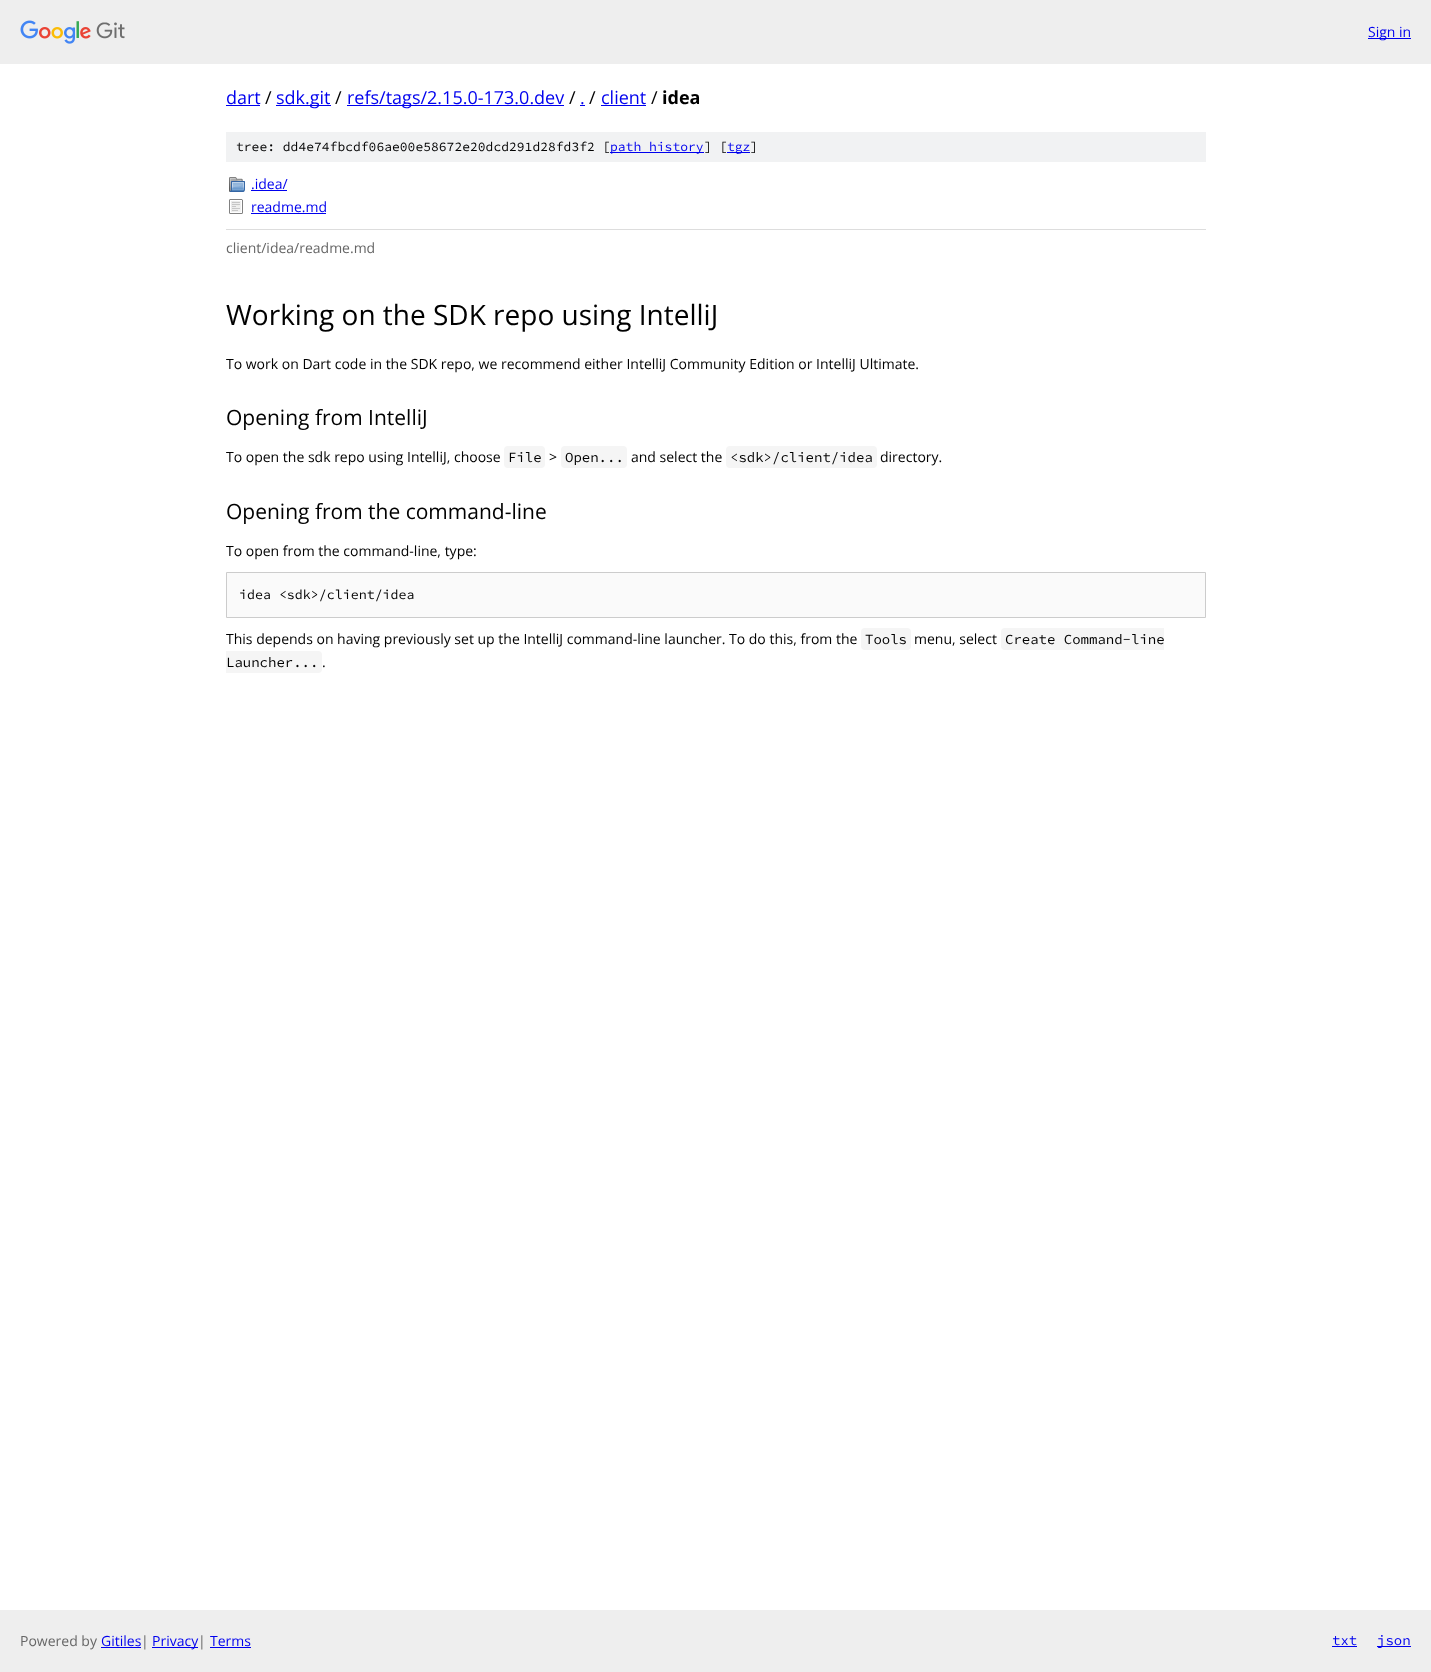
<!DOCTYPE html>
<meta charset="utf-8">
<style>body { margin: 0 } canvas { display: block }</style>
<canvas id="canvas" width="1431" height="1672"></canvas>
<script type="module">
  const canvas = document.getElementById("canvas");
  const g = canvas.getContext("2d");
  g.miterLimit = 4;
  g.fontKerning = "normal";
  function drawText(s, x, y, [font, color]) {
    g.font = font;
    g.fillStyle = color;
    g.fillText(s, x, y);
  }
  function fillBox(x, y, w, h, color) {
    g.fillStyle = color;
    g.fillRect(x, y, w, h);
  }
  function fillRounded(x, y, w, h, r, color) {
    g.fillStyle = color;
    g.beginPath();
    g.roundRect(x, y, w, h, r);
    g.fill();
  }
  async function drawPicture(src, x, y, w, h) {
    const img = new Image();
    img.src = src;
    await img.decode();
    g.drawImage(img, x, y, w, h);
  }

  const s1 = ["14px Open Sans", "#0000EE"];
  const s2 = ["18px Open Sans", "#0000EE"];
  const s3 = ["18px Open Sans", "#000000"];
  const s4 = ["bold 18px Open Sans", "#000000"];
  const s5 = ["200 13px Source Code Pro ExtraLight", "#000000"];
  const s6 = ["200 13px Source Code Pro ExtraLight", "#0000EE"];
  const s7 = ["14px Open Sans", "#666666"];
  const s8 = ["28px Open Sans", "#000000"];
  const s9 = ["14px Open Sans", "#000000"];
  const s10 = ["21px Open Sans", "#000000"];
  const s11 = ["200 14px Source Code Pro ExtraLight", "#000000"];
  const s12 = ["200 13.3px Source Code Pro ExtraLight", "#000000"];
  const s13 = ["200 14px Source Code Pro ExtraLight", "#0000EE"];

  fillBox(0, 0, 1431, 1672, "#FFFFFF");
  fillBox(0, 0, 1431, 64, "#EEEEEE");
  await drawPicture("pic1.png", 20, 20, 105, 24);
  fillBox(1368, 38, 43, 1, "#0000EE");
  drawText("Sign in", 1368, 37, s1);
  drawText("dart", 226, 104, s2);
  fillBox(226, 105, 34, 1, "#0000EE");
  drawText("/", 265, 104, s3);
  fillBox(276, 105, 55, 1, "#0000EE");
  drawText("sdk.git", 276, 104, s2);
  drawText("/", 335, 104, s3);
  fillBox(347, 105, 217, 1, "#0000EE");
  drawText("refs/tags/2.15.0-173.0.dev", 347, 104, s2);
  drawText("/", 569, 104, s3);
  drawText(".", 580, 104, s2);
  fillBox(580, 105, 5, 1, "#0000EE");
  drawText("/", 589, 104, s3);
  drawText("client", 601, 104, s2);
  fillBox(601, 105, 45, 1, "#0000EE");
  drawText("/", 651, 104, s3);
  drawText("idea", 662, 104, s4);
  fillBox(226, 132, 980, 30, "#F1F2F3");
  drawText("tree: dd4e74fbcdf06ae00e58672e20dcd291d28fd3f2 [", 236, 151, s5);
  fillBox(610, 152, 94, 1, "#0000EE");
  drawText("path history", 610, 151, s6);
  drawText("] [", 704, 151, s5);
  fillBox(727, 152, 23, 1, "#0000EE");
  drawText("tgz", 727, 151, s6);
  drawText("]", 750, 151, s5);
  await drawPicture("pic2.png", 229, 177, 16, 15);
  drawText(".idea/", 251, 189, s1);
  fillBox(251, 190, 36, 1, "#0000EE");
  await drawPicture("pic3.png", 229, 199, 14, 15);
  drawText("readme.md", 251, 212, s1);
  fillBox(251, 213, 75, 1, "#0000EE");
  fillBox(226, 229, 980, 1, "#DDDDDD");
  drawText("client/idea/readme.md", 226, 253, s7);
  drawText("Working on the SDK repo using IntelliJ", 226, 325, s8);
  drawText("To work on Dart code in the SDK repo, we recommend either IntelliJ Community Edition or IntelliJ Ultimate.", 226, 369, s9);
  drawText("Opening from IntelliJ", 226, 425, s10);
  drawText("To open the sdk repo using IntelliJ, choose", 226, 462, s9);
  fillRounded(504, 446, 41, 22, 4, "#F5F5F5");
  drawText("File", 508, 462, s11);
  drawText(">", 549, 462, s9);
  fillRounded(561, 446, 66, 22, 4, "#F5F5F5");
  drawText("Open...", 565, 462, s11);
  drawText("and select the", 631, 462, s9);
  fillRounded(726, 446, 151, 22, 4, "#F5F5F5");
  drawText("<sdk>/client/idea", 730, 462, s11);
  drawText("directory.", 880, 462, s9);
  drawText("Opening from the command-line", 226, 519, s10);
  drawText("To open from the command-line, type:", 226, 556, s9);
  g.fillStyle = "#FAFAFA";
  g.beginPath();
  g.rect(226.5, 572.5, 979, 45);
  g.fill();
  g.strokeStyle = "#CCCCCC";
  g.stroke();
  drawText("idea <sdk>/client/idea", 239, 599, s12);
  drawText("This depends on having previously set up the IntelliJ command-line launcher. To do this, from the", 226, 644, s9);
  fillRounded(861, 628, 50, 22, 4, "#F5F5F5");
  drawText("Tools", 865, 644, s11);
  drawText("menu, select", 914, 644, s9);
  g.fillStyle = "#F5F5F5";
  g.beginPath();
  g.roundRect(1001, 628, 163, 22, [4, 0, 0, 4]);
  g.fill();
  drawText("Create Command-line", 1005, 644, s11);
  g.fillStyle = "#F5F5F5";
  g.beginPath();
  g.roundRect(226, 651, 96, 22, [0, 4, 4, 0]);
  g.fill();
  drawText("Launcher...", 226, 667, s11);
  drawText(".", 322, 667, s9);
  fillBox(0, 1610, 1431, 62, "#EEEEEE");
  drawText("Powered by", 20, 1646, s7);
  drawText("Gitiles", 101, 1646, s1);
  fillBox(101, 1647, 40, 1, "#0000EE");
  drawText("|", 141, 1646, s7);
  fillBox(152, 1647, 46, 1, "#0000EE");
  drawText("Privacy", 152, 1646, s1);
  drawText("|", 198, 1646, s7);
  drawText("Terms", 210, 1646, s1);
  fillBox(210, 1647, 41, 1, "#0000EE");
  drawText("txt", 1332, 1645, s13);
  fillBox(1332, 1646, 25, 1, "#0000EE");
  fillBox(1377, 1646, 34, 1, "#0000EE");
  drawText("json", 1377, 1645, s13);
</script>
